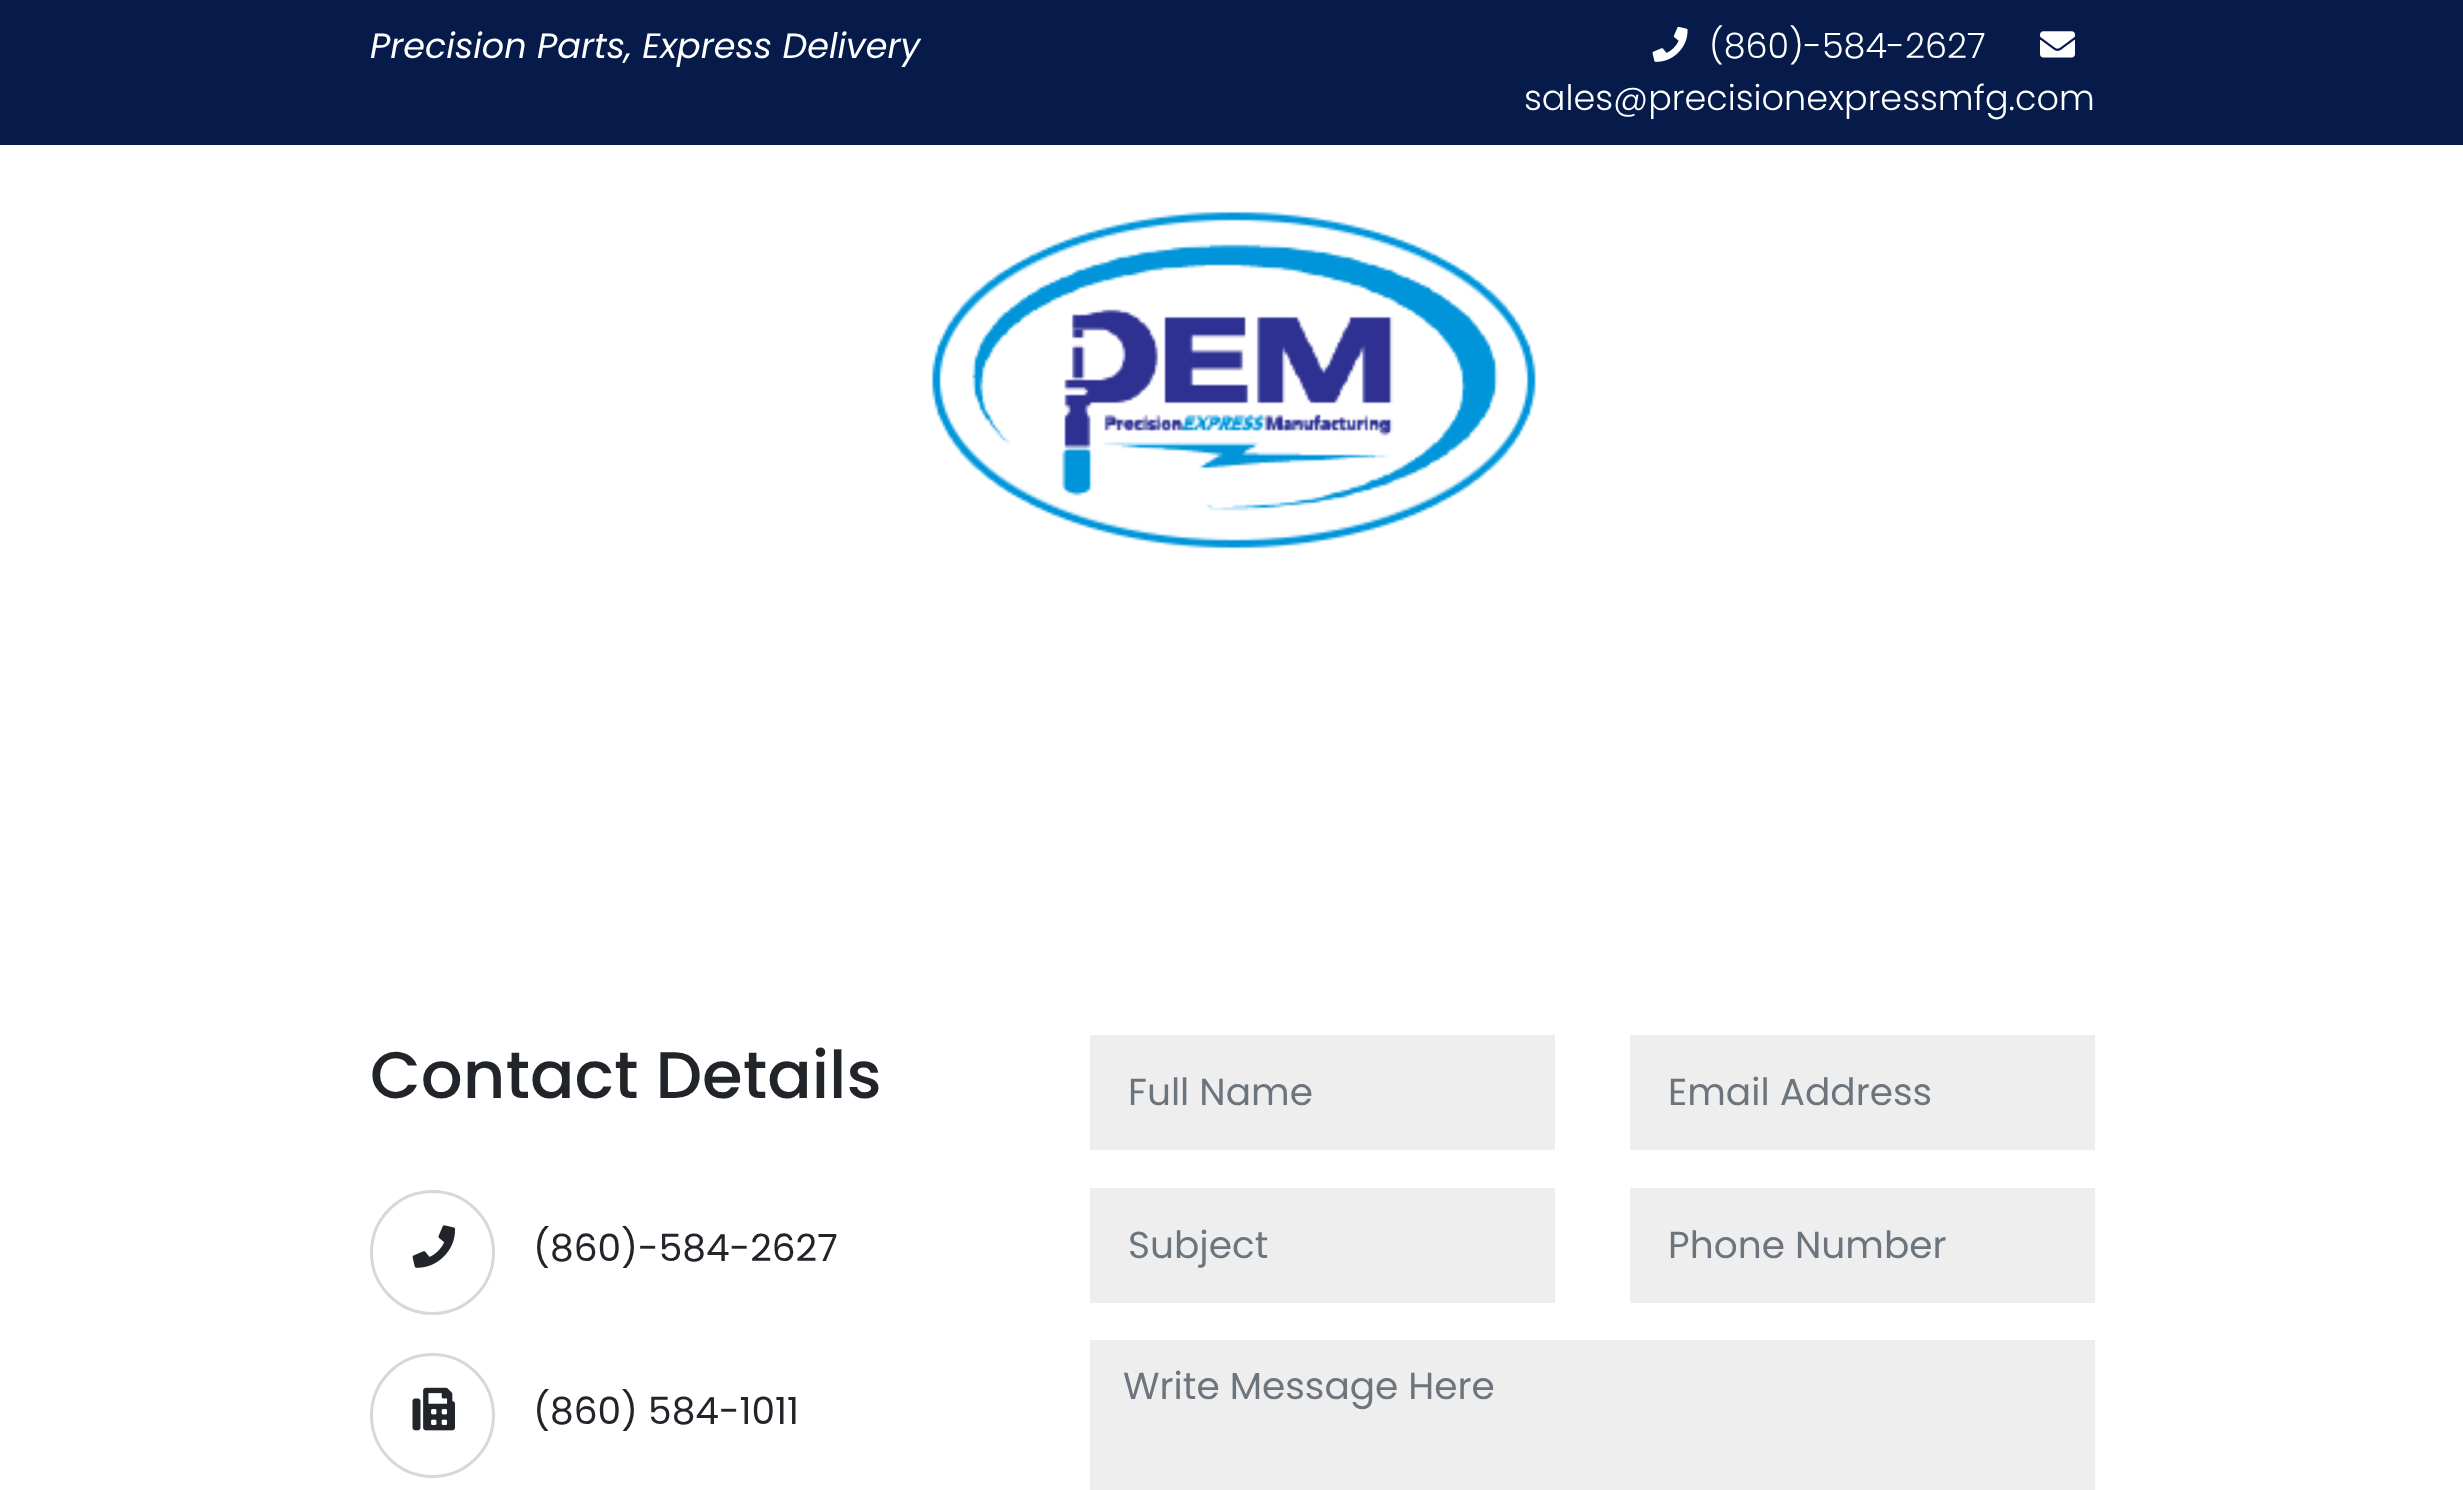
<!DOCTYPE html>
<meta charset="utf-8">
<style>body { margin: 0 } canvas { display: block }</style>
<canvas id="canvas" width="2463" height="1490"></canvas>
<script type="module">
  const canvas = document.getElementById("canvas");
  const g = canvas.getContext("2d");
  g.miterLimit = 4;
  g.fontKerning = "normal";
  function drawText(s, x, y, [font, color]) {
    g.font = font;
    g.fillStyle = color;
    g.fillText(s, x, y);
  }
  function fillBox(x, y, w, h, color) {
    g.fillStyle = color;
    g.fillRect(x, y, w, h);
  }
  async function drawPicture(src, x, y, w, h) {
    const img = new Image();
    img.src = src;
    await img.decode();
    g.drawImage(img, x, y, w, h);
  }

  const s1 = ["italic 35px Poppins", "#FFFFFF"];
  const s2 = ["300 35px Poppins", "#FFFFFF"];
  const s3 = ["500 65.75px Poppins", "#212529"];
  const s4 = ["37.5px Poppins", "#212529"];
  const s5 = ["37.5px Poppins", "#6C757D"];

  fillBox(0, 0, 2463, 1490, "#FFFFFF");
  fillBox(0, 0, 2463, 145, "#061B49");
  drawText("Precision Parts, Express Delivery", 370, 58, s1);
  await drawPicture("pic1.png", 1652, 26, 36, 36);
  drawText("(860)-584-2627", 1709, 58, s2);
  await drawPicture("pic2.png", 2040, 31, 35, 27);
  drawText("sales@precisionexpressmfg.com", 1524, 110, s2);
  await drawPicture("pic3.png", 931, 211, 605, 338);
  drawText("Contact Details", 370, 1098, s3);
  g.beginPath();
  g.arc(432.5, 1252.5, 61, 0, Math.PI * 2);
  g.strokeStyle = "#D8D8D8";
  g.lineWidth = 3;
  g.stroke();
  await drawPicture("pic4.png", 412, 1225, 44, 43);
  drawText("(860)-584-2627", 533, 1261, s4);
  g.beginPath();
  g.arc(432.5, 1415.5, 61, 0, Math.PI * 2);
  g.stroke();
  await drawPicture("pic5.png", 412, 1387, 43, 44);
  drawText("(860) 584-1011", 533, 1424, s4);
  fillBox(1090, 1035, 465, 115, "#EEEEEE");
  drawText("Full Name", 1128, 1105, s5);
  fillBox(1630, 1035, 465, 115, "#EEEEEE");
  drawText("Email Address", 1668, 1105, s5);
  fillBox(1090, 1188, 465, 115, "#EEEEEE");
  drawText("Subject", 1128, 1258, s5);
  fillBox(1630, 1188, 465, 115, "#EEEEEE");
  drawText("Phone Number", 1668, 1258, s5);
  fillBox(1090, 1340, 1005, 150, "#EEEEEE");
  drawText("Write Message Here", 1123, 1399, s5);
</script>
